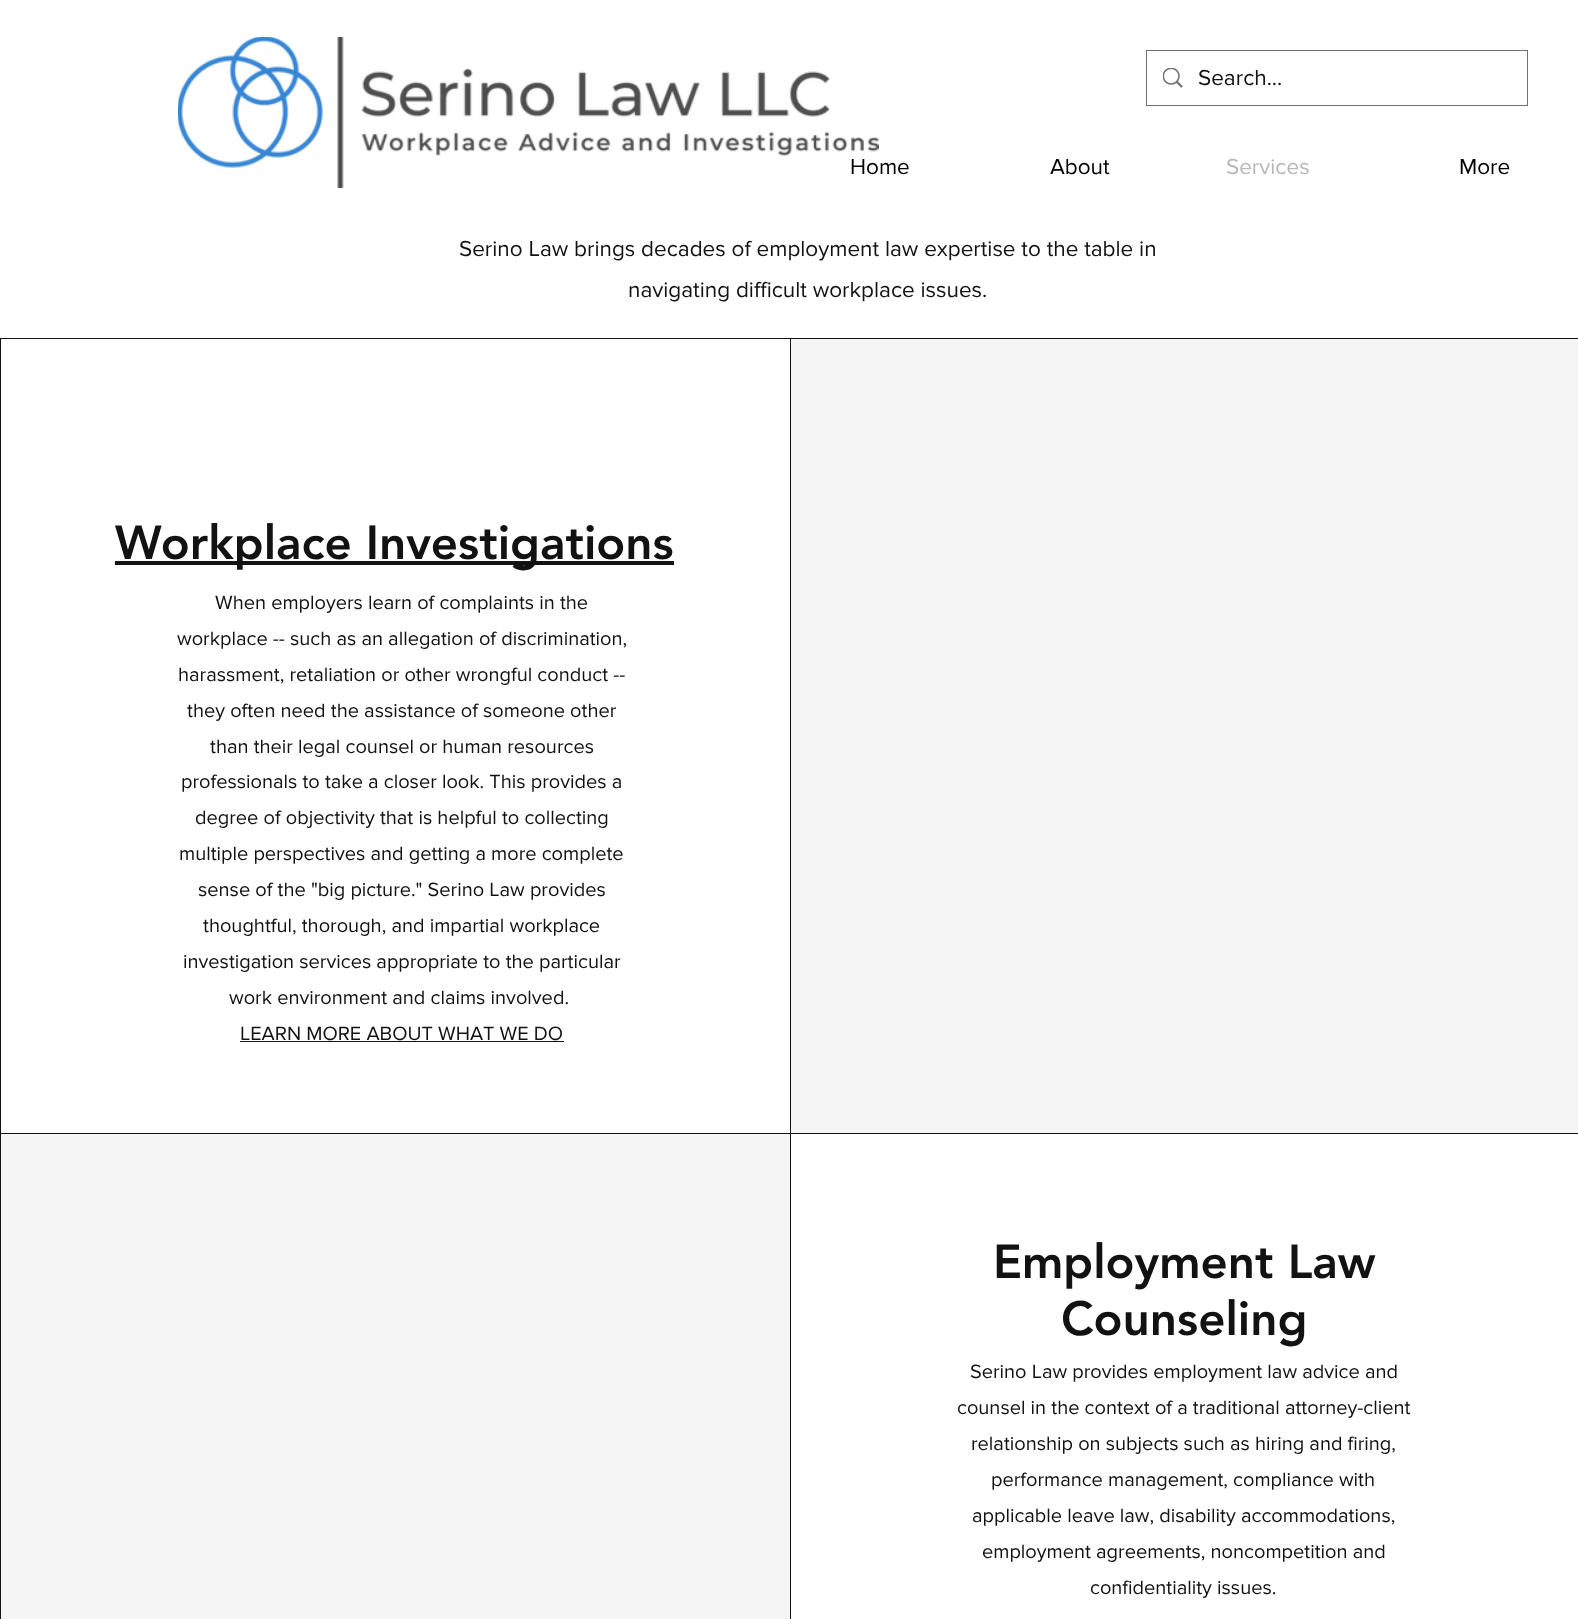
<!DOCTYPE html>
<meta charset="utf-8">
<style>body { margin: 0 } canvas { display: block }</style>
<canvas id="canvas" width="1578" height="1619"></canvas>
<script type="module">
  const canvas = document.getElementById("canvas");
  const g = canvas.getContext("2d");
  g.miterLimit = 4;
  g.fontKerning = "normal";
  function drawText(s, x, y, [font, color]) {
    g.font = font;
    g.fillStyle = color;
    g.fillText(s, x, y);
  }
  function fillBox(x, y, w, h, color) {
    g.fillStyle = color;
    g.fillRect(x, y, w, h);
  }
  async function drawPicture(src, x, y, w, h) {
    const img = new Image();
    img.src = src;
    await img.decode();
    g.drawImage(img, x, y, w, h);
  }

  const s1 = ["22.5px 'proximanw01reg'", "#000000"];
  const s2 = ["22.5px 'proximanw01reg'", "#121212"];
  const s3 = ["22.5px 'proximanw01reg'", "#B8B8B8"];
  const s4 = ["900 47.5px 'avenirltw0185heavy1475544'", "#121212"];
  const s5 = ["20px 'proximanw01reg'", "#121212"];

  fillBox(0, 0, 1578, 1619, "#FFFFFF");
  drawText("Home", 850, 174, s1);
  await drawPicture("pic1.png", 178, 37, 701, 151);
  g.strokeStyle = "#717171";
  g.strokeRect(1146.5, 50.5, 381, 55);
  await drawPicture("pic2.png", 1163, 68, 20, 20);
  drawText("Search...", 1198, 85, s2);
  drawText("About", 1050, 174, s1);
  drawText("Services", 1226, 174, s3);
  drawText("More", 1459, 174, s1);
  drawText("Serino Law brings decades of employment law expertise to the table in", 459, 256, s2);
  drawText("navigating difficult workplace issues.", 628, 297, s2);
  fillBox(0, 338, 1578, 1281, "#121212");
  fillBox(1, 339, 789, 794, "#FFFFFF");
  fillBox(115, 561, 559, 4, "#121212");
  drawText("Workplace Investigations", 115, 559, s4);
  drawText("When employers learn of complaints in the", 215, 609, s5);
  drawText("workplace -- such as an allegation of discrimination,", 177, 645, s5);
  drawText("harassment, retaliation or other wrongful conduct --", 178, 681, s5);
  drawText("they often need the assistance of someone other", 187, 717, s5);
  drawText("than their legal counsel or human resources", 210, 753, s5);
  drawText("professionals to take a closer look. This provides a", 181, 788, s5);
  drawText("degree of objectivity that is helpful to collecting", 195, 824, s5);
  drawText("multiple perspectives and getting a more complete", 179, 860, s5);
  drawText("sense of the \"big picture.\" Serino Law provides", 198, 896, s5);
  drawText("thoughtful, thorough, and impartial workplace", 203, 932, s5);
  drawText("investigation services appropriate to the particular", 183, 968, s5);
  drawText("work environment and claims involved.", 229, 1004, s5);
  drawText("LEARN MORE ABOUT WHAT WE DO", 240, 1040, s5);
  fillBox(240, 1041, 324, 1, "#121212");
  fillBox(791, 339, 787, 794, "#F5F5F5");
  fillBox(1, 1134, 789, 485, "#F5F5F5");
  fillBox(791, 1134, 787, 485, "#FFFFFF");
  drawText("Employment Law", 993, 1278, s4);
  drawText("Counseling", 1061, 1335, s4);
  drawText("Serino Law provides employment law advice and", 970, 1378, s5);
  drawText("counsel in the context of a traditional attorney-client", 957, 1414, s5);
  drawText("relationship on subjects such as hiring and firing,", 971, 1450, s5);
  drawText("performance management, compliance with", 991, 1486, s5);
  drawText("applicable leave law, disability accommodations,", 972, 1522, s5);
  drawText("employment agreements, noncompetition and", 982, 1558, s5);
  drawText("confidentiality issues.", 1090, 1594, s5);
</script>
